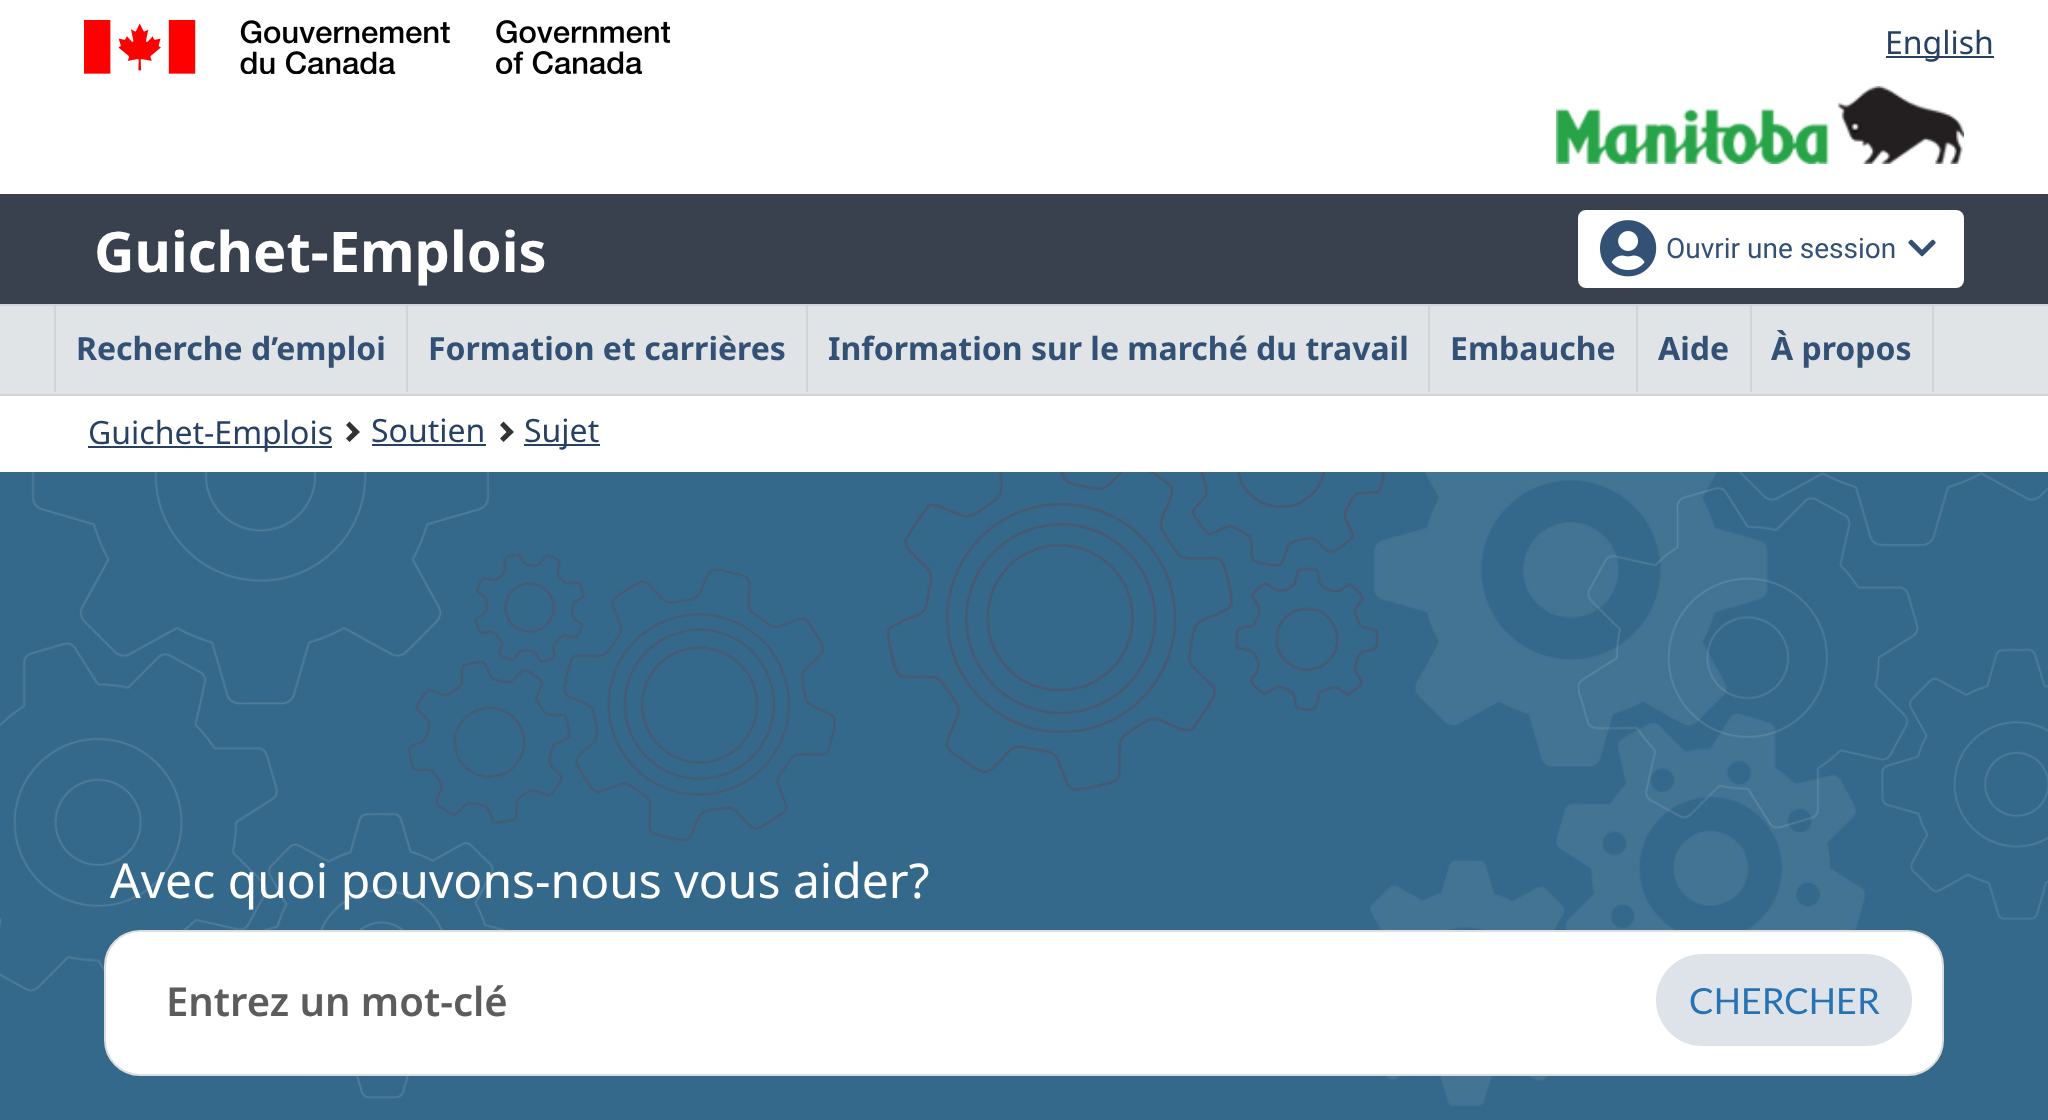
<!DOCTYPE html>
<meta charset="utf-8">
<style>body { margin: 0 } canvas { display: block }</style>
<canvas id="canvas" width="2048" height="1120"></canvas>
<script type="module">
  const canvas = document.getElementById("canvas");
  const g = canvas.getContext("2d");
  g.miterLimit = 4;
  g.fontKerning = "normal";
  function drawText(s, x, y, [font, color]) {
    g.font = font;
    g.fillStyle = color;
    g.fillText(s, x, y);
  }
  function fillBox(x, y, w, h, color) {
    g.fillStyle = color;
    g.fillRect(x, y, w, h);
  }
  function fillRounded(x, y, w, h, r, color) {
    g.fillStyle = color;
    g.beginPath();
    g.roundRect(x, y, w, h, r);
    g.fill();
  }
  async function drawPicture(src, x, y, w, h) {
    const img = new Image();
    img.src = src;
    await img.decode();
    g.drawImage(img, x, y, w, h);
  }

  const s1 = ["32px Noto Sans", "#284162"];
  const s2 = ["bold 56px Noto Sans", "#FFFFFF"];
  const s3 = ["28px Roboto", "#335075"];
  const s4 = ["bold 32px Noto Sans", "#335075"];
  const s5 = ["48px Noto Sans", "#FFFFFF"];
  const s6 = ["600 40px Noto Sans", "#5C5C5C"];
  const s7 = ["36px Lato", "#2572B4"];

  fillBox(0, 0, 2048, 1120, "#FFFFFF");
  await drawPicture("pic1.png", 84, 20, 586, 54);
  fillBox(1886, 56, 108, 2, "#284162");
  drawText("English", 1885, 54, s1);
  await drawPicture("pic2.png", 1556, 86, 408, 78);
  fillBox(0, 194, 2048, 110, "#38414D");
  drawText("Guichet-Emplois", 94, 272, s2);
  fillRounded(1578, 210, 386, 78, 8, "#FFFFFF");
  await drawPicture("pic3.png", 1600, 220, 57, 57);
  drawText("Ouvrir une session", 1666, 258, s3);
  await drawPicture("pic4.png", 1908, 239, 28, 18);
  fillBox(0, 306, 2048, 88, "#E1E4E7");
  fillBox(0, 304, 2048, 2, "#D3D4D8");
  fillBox(0, 394, 2048, 2, "#D3D4D8");
  fillBox(54, 306, 2, 86, "#D3D4D8");
  drawText("Recherche d’emploi", 76, 360, s4);
  fillBox(406, 306, 2, 86, "#D3D4D8");
  drawText("Formation et carrières", 428, 360, s4);
  fillBox(806, 306, 2, 86, "#D3D4D8");
  drawText("Information sur le marché du travail", 828, 360, s4);
  fillBox(1428, 306, 2, 86, "#D3D4D8");
  drawText("Embauche", 1450, 360, s4);
  fillBox(1636, 306, 2, 86, "#D3D4D8");
  drawText("Aide", 1658, 360, s4);
  fillBox(1932, 306, 2, 86, "#D3D4D8");
  fillBox(1750, 306, 2, 86, "#D3D4D8");
  drawText("À propos", 1771, 360, s4);
  fillBox(88, 446, 244, 2, "#284162");
  drawText("Guichet-Emplois", 88, 444, s1);
  g.fillStyle = "#333333";
  g.beginPath();
  g.moveTo(360, 432);
  g.lineTo(349.5, 442);
  g.lineTo(346, 438.5);
  g.lineTo(352.5, 432);
  g.lineTo(346, 425);
  g.lineTo(349.5, 421.5);
  g.closePath();
  g.fill();
  drawText("Soutien", 371, 442, s1);
  fillBox(372, 444, 114, 2, "#284162");
  g.fillStyle = "#333333";
  g.beginPath();
  g.moveTo(514, 432);
  g.lineTo(503.5, 442);
  g.lineTo(500, 438.5);
  g.lineTo(506.5, 432);
  g.lineTo(500, 425);
  g.lineTo(503.5, 421.5);
  g.closePath();
  g.fill();
  fillBox(524, 444, 76, 2, "#284162");
  drawText("Sujet", 524, 442, s1);
  await drawPicture("pic5.png", 0, 472, 2048, 648);
  drawText("Avec quoi pouvons-nous vous aider?", 110, 898, s5);
  g.beginPath();
  g.roundRect(105, 931, 1838, 144, 35);
  g.fill();
  g.strokeStyle = "#DDDDDD";
  g.lineWidth = 2;
  g.stroke();
  drawText("Entrez un mot-clé", 166, 1016, s6);
  fillRounded(1656, 954, 256, 92, 46, "#DEE3EA");
  drawText("CHERCHER", 1689, 1014, s7);
</script>
